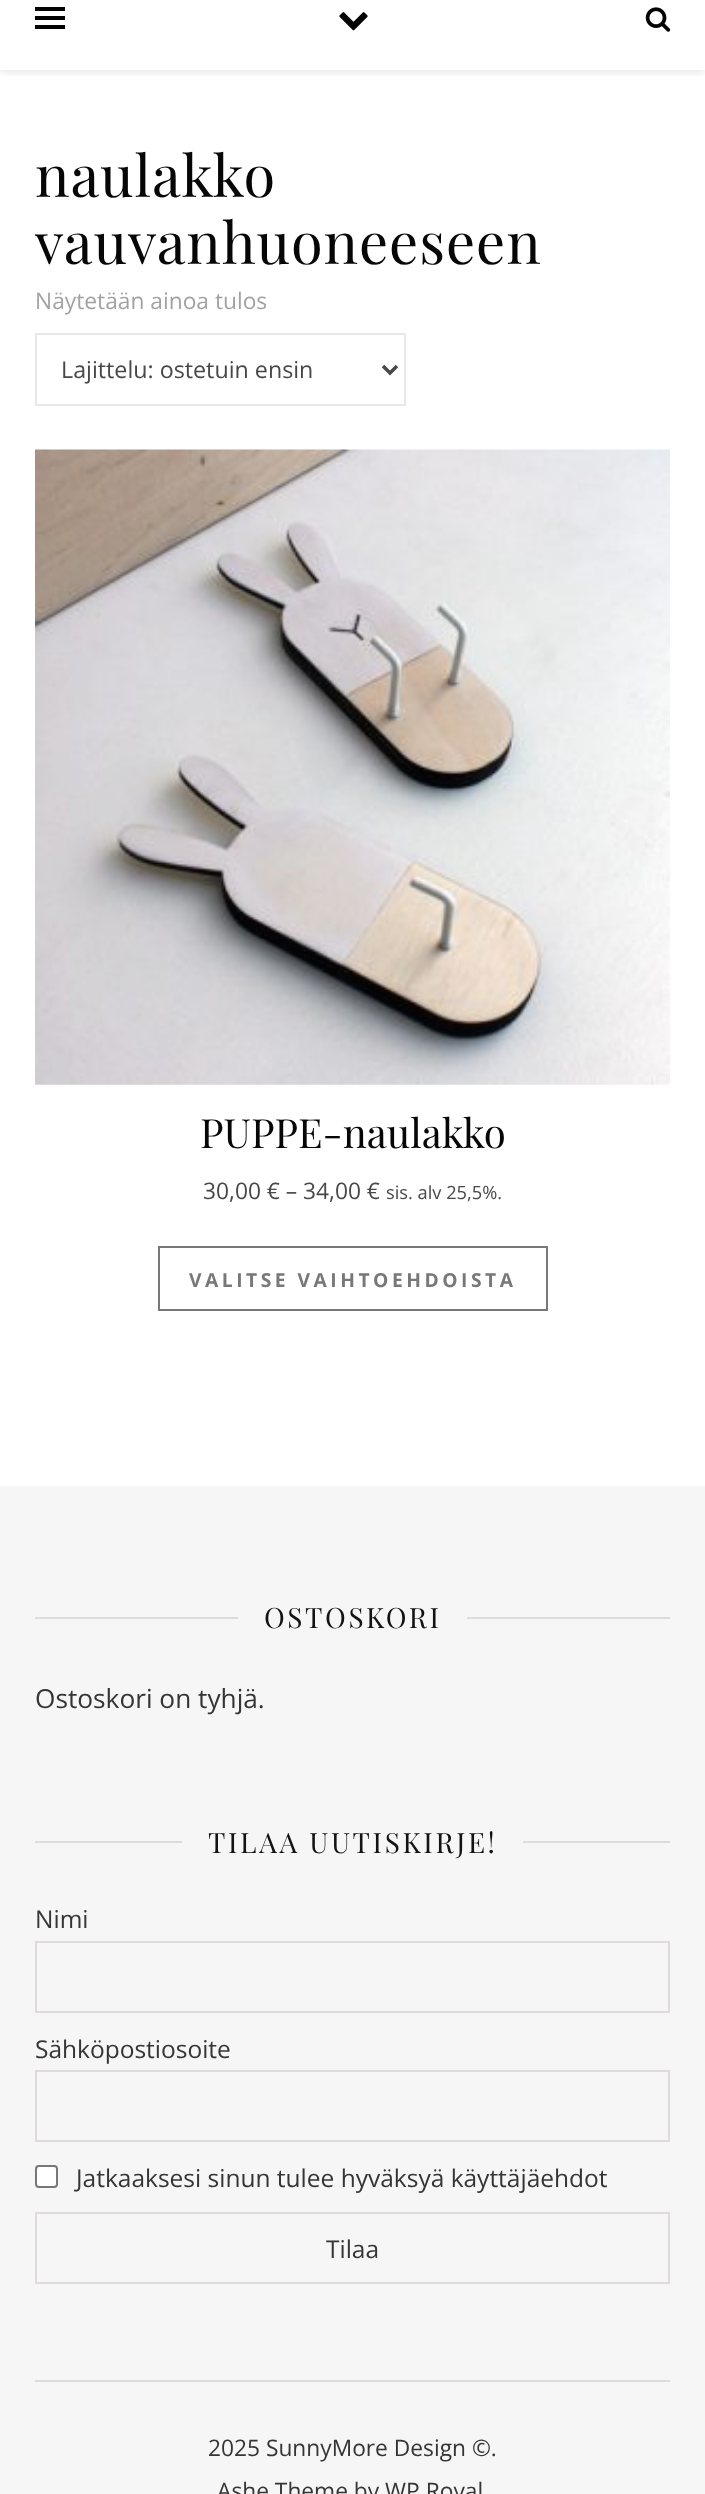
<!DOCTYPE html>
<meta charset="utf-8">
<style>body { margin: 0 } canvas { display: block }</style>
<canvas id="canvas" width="705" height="2494"></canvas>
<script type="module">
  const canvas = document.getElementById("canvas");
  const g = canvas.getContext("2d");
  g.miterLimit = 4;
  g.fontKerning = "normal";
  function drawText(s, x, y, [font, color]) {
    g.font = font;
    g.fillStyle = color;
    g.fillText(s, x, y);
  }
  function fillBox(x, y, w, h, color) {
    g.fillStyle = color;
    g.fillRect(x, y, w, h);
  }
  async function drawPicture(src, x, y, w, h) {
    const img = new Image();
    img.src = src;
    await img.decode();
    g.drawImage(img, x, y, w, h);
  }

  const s1 = ["57.75px Playfair Display", "#060606"];
  const s2 = ["22.75px Open Sans", "#A2A2A2"];
  const s3 = ["23.25px Open Sans", "#484848"];
  const s4 = ["40.25px Playfair Display", "#060606"];
  const s5 = ["22.75px Open Sans", "#484848"];
  const s6 = ["18.25px Open Sans", "#484848"];
  const s7 = ["bold 19.25px Open Sans", "#787878"];
  const s8 = ["28px Playfair Display", "#131313"];
  const s9 = ["26.25px Open Sans", "#353535"];
  const s10 = ["24.5px Open Sans", "#353535"];
  const s11 = ["22.75px Open Sans", "#353535"];

  fillBox(0, 0, 705, 2494, "#FFFFFF");
  g.save();
  g.beginPath();
  g.rect(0, 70, 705, 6);
  g.clip();
  g.fillStyle = "rgba(3, 3, 3, 0.1)";
  g.filter = "blur(4.5px)";
  g.beginPath();
  g.rect(0, -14, 705, 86);
  g.fill();
  g.filter = "none";
  g.restore();
  fillBox(35, 7, 30, 4, "#030303");
  fillBox(35, 16, 30, 4, "#030303");
  fillBox(35, 25, 30, 4, "#030303");
  await drawPicture("pic1.png", 339, 12, 29, 19);
  await drawPicture("pic2.png", 645, 7, 26, 25);
  g.letterSpacing = "0.9px";
  drawText("naulakko", 35, 197, s1);
  drawText("vauvanhuoneeseen", 35, 264, s1);
  g.letterSpacing = "0px";
  drawText("Näytetään ainoa tulos", 35, 309, s2);
  g.strokeStyle = "#E8E8E8";
  g.lineWidth = 2;
  g.strokeRect(36, 334, 369, 71);
  g.beginPath();
  g.moveTo(383, 366);
  g.lineTo(390, 373);
  g.lineTo(397, 366);
  g.strokeStyle = "#484848";
  g.lineWidth = 3.5;
  g.stroke();
  drawText("Lajittelu: ostetuin ensin", 61, 378, s3);
  await drawPicture("pic3.png", 35, 449, 635, 636);
  drawText("PUPPE-naulakko", 200, 1148, s4);
  drawText("30,00 € – 34,00 €", 203, 1199, s5);
  drawText("sis. alv 25,5%.", 386, 1199, s6);
  g.strokeStyle = "#787878";
  g.lineWidth = 2;
  g.strokeRect(159, 1247, 388, 63);
  g.letterSpacing = "3.5px";
  drawText("VALITSE VAIHTOEHDOISTA", 189, 1287, s7);
  fillBox(0, 1486, 705, 1008, "#F6F6F6");
  fillBox(35, 2380, 635, 2, "#E0DBDB");
  fillBox(35, 1617, 203, 2, "#E0DBDB");
  g.letterSpacing = "2.6px";
  drawText("OSTOSKORI", 264, 1628, s8);
  fillBox(467, 1617, 203, 2, "#E0DBDB");
  g.letterSpacing = "0px";
  drawText("Ostoskori on tyhjä.", 35, 1708, s9);
  fillBox(35, 1841, 147, 2, "#E0DBDB");
  g.letterSpacing = "2.6px";
  drawText("TILAA UUTISKIRJE!", 208, 1853, s8);
  fillBox(523, 1841, 147, 2, "#E0DBDB");
  g.letterSpacing = "0px";
  drawText("Nimi", 35, 1928, s10);
  g.strokeStyle = "#E0DBDB";
  g.strokeRect(36, 1942, 633, 70);
  drawText("Sähköpostiosoite", 35, 2058, s10);
  g.strokeRect(36, 2071, 633, 70);
  g.fillStyle = "#FFFFFF";
  g.beginPath();
  g.roundRect(36, 2166, 21, 21, 3);
  g.fill();
  g.strokeStyle = "#777777";
  g.stroke();
  drawText("Jatkaaksesi sinun tulee hyväksyä käyttäjäehdot", 76, 2187, s10);
  g.strokeStyle = "#E0DBDB";
  g.strokeRect(36, 2213, 633, 70);
  drawText("Tilaa", 326, 2258, s10);
  drawText("2025 SunnyMore Design ©.", 208, 2456, s11);
  drawText("Ashe Theme by WP Royal", 217, 2499, s11);
</script>
